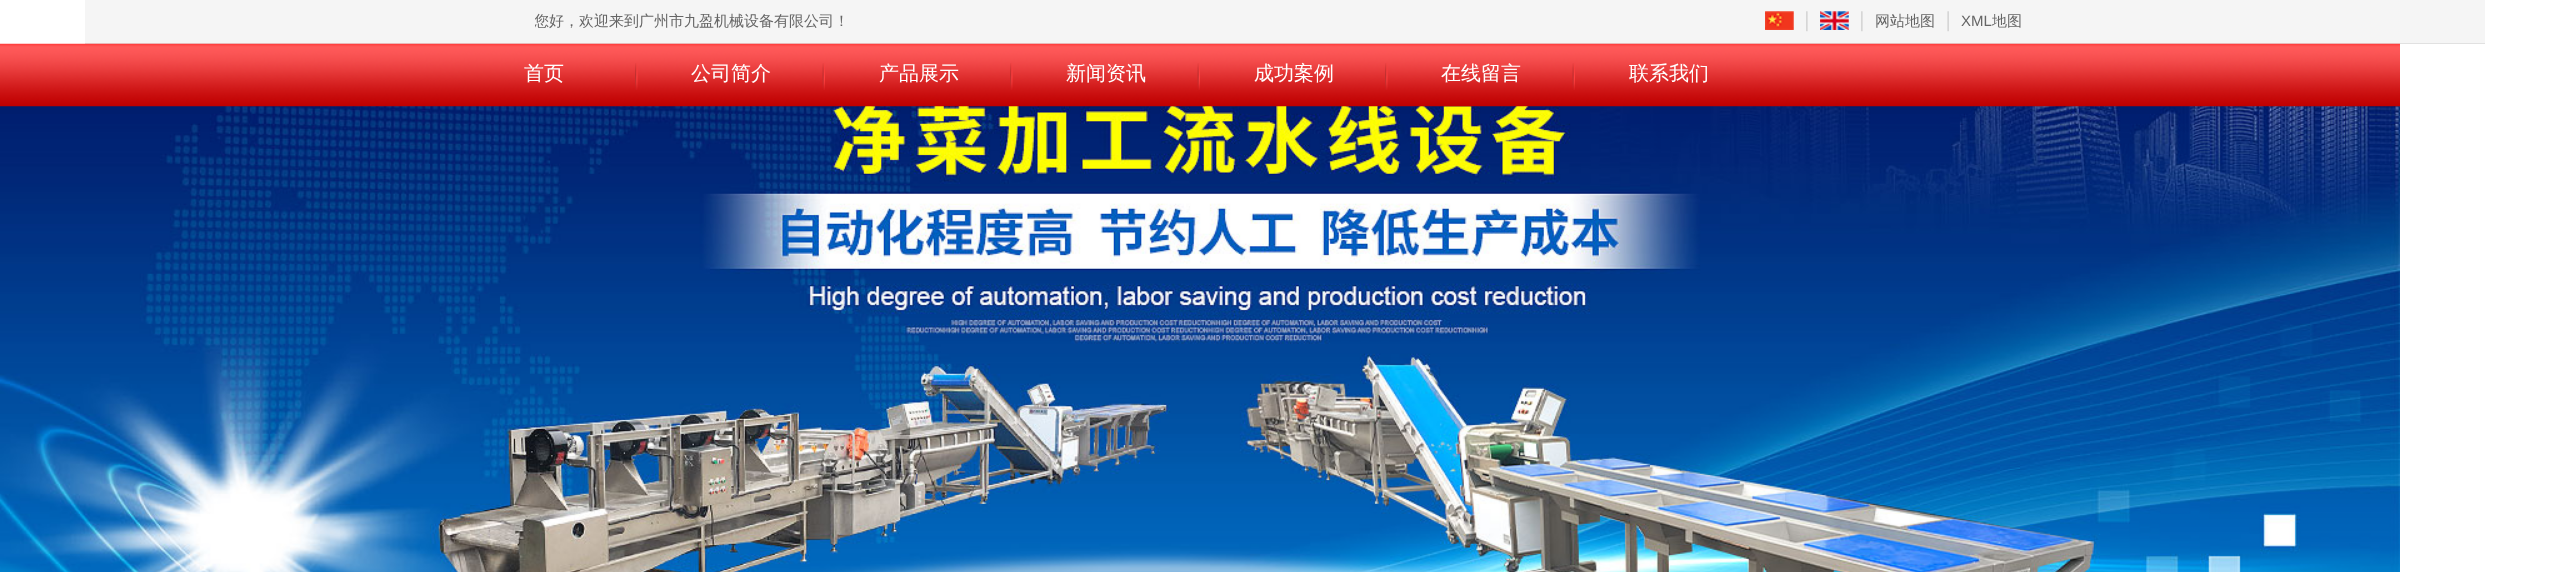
<!DOCTYPE html>
<meta charset="utf-8">
<style>body { margin: 0 } canvas { display: block }</style>
<canvas id="canvas" width="2568" height="572"></canvas>
<script type="module">
  const canvas = document.getElementById("canvas");
  const g = canvas.getContext("2d");
  g.miterLimit = 4;
  g.fontKerning = "normal";
  function drawText(s, x, y, [font, color]) {
    g.font = font;
    g.fillStyle = color;
    g.fillText(s, x, y);
  }
  function fillBox(x, y, w, h, color) {
    g.fillStyle = color;
    g.fillRect(x, y, w, h);
  }
  async function drawPicture(src, x, y, w, h) {
    const img = new Image();
    img.src = src;
    await img.decode();
    g.drawImage(img, x, y, w, h);
  }

  const s1 = ["500 15px WenQuanYi Zen Hei", "#666666"];
  const s2 = ["15px Liberation Sans", "#666666"];
  const s3 = ["500 20px WenQuanYi Zen Hei", "#FFFFFF"];

  fillBox(0, 0, 2568, 572, "#FFFFFF");
  fillBox(85, 0, 2400, 43, "#F5F5F5");
  fillBox(85, 43, 2400, 1, "#E1E1E1");
  g.save();
  g.beginPath();
  g.rect(535, 0, 315, 43);
  g.clip();
  drawText("您好，欢迎来到广州市九盈机械设备有限公司！", 534, 26, s1);
  g.restore();
  await drawPicture("pic1.png", 1765, 11, 29, 19);
  await drawPicture("pic2.png", 1806, 11, 2, 21);
  await drawPicture("pic3.png", 1820, 11, 29, 19);
  await drawPicture("pic2.png", 1861, 11, 2, 21);
  drawText("网站地图", 1875, 26, s1);
  await drawPicture("pic4.png", 1947, 11, 2, 21);
  drawText("XML", 1961, 26, s2);
  drawText("地图", 1992, 26, s1);
  await drawPicture("pic11.png", 0, 106, 2400, 466);
  await drawPicture("pic5.png", 0, 43, 2400, 64);
  await drawPicture("pic6.png", 635, 63, 3, 27);
  drawText("首页", 524, 80, s3);
  await drawPicture("pic7.png", 822, 63, 3, 27);
  drawText("公司简介", 691, 80, s3);
  await drawPicture("pic8.png", 1010, 63, 3, 27);
  drawText("产品展示", 879, 80, s3);
  await drawPicture("pic9.png", 1197, 63, 3, 27);
  drawText("新闻资讯", 1066, 80, s3);
  await drawPicture("pic10.png", 1385, 63, 3, 27);
  drawText("成功案例", 1254, 80, s3);
  await drawPicture("pic7.png", 1572, 63, 3, 27);
  drawText("在线留言", 1441, 80, s3);
  drawText("联系我们", 1629, 80, s3);
</script>
